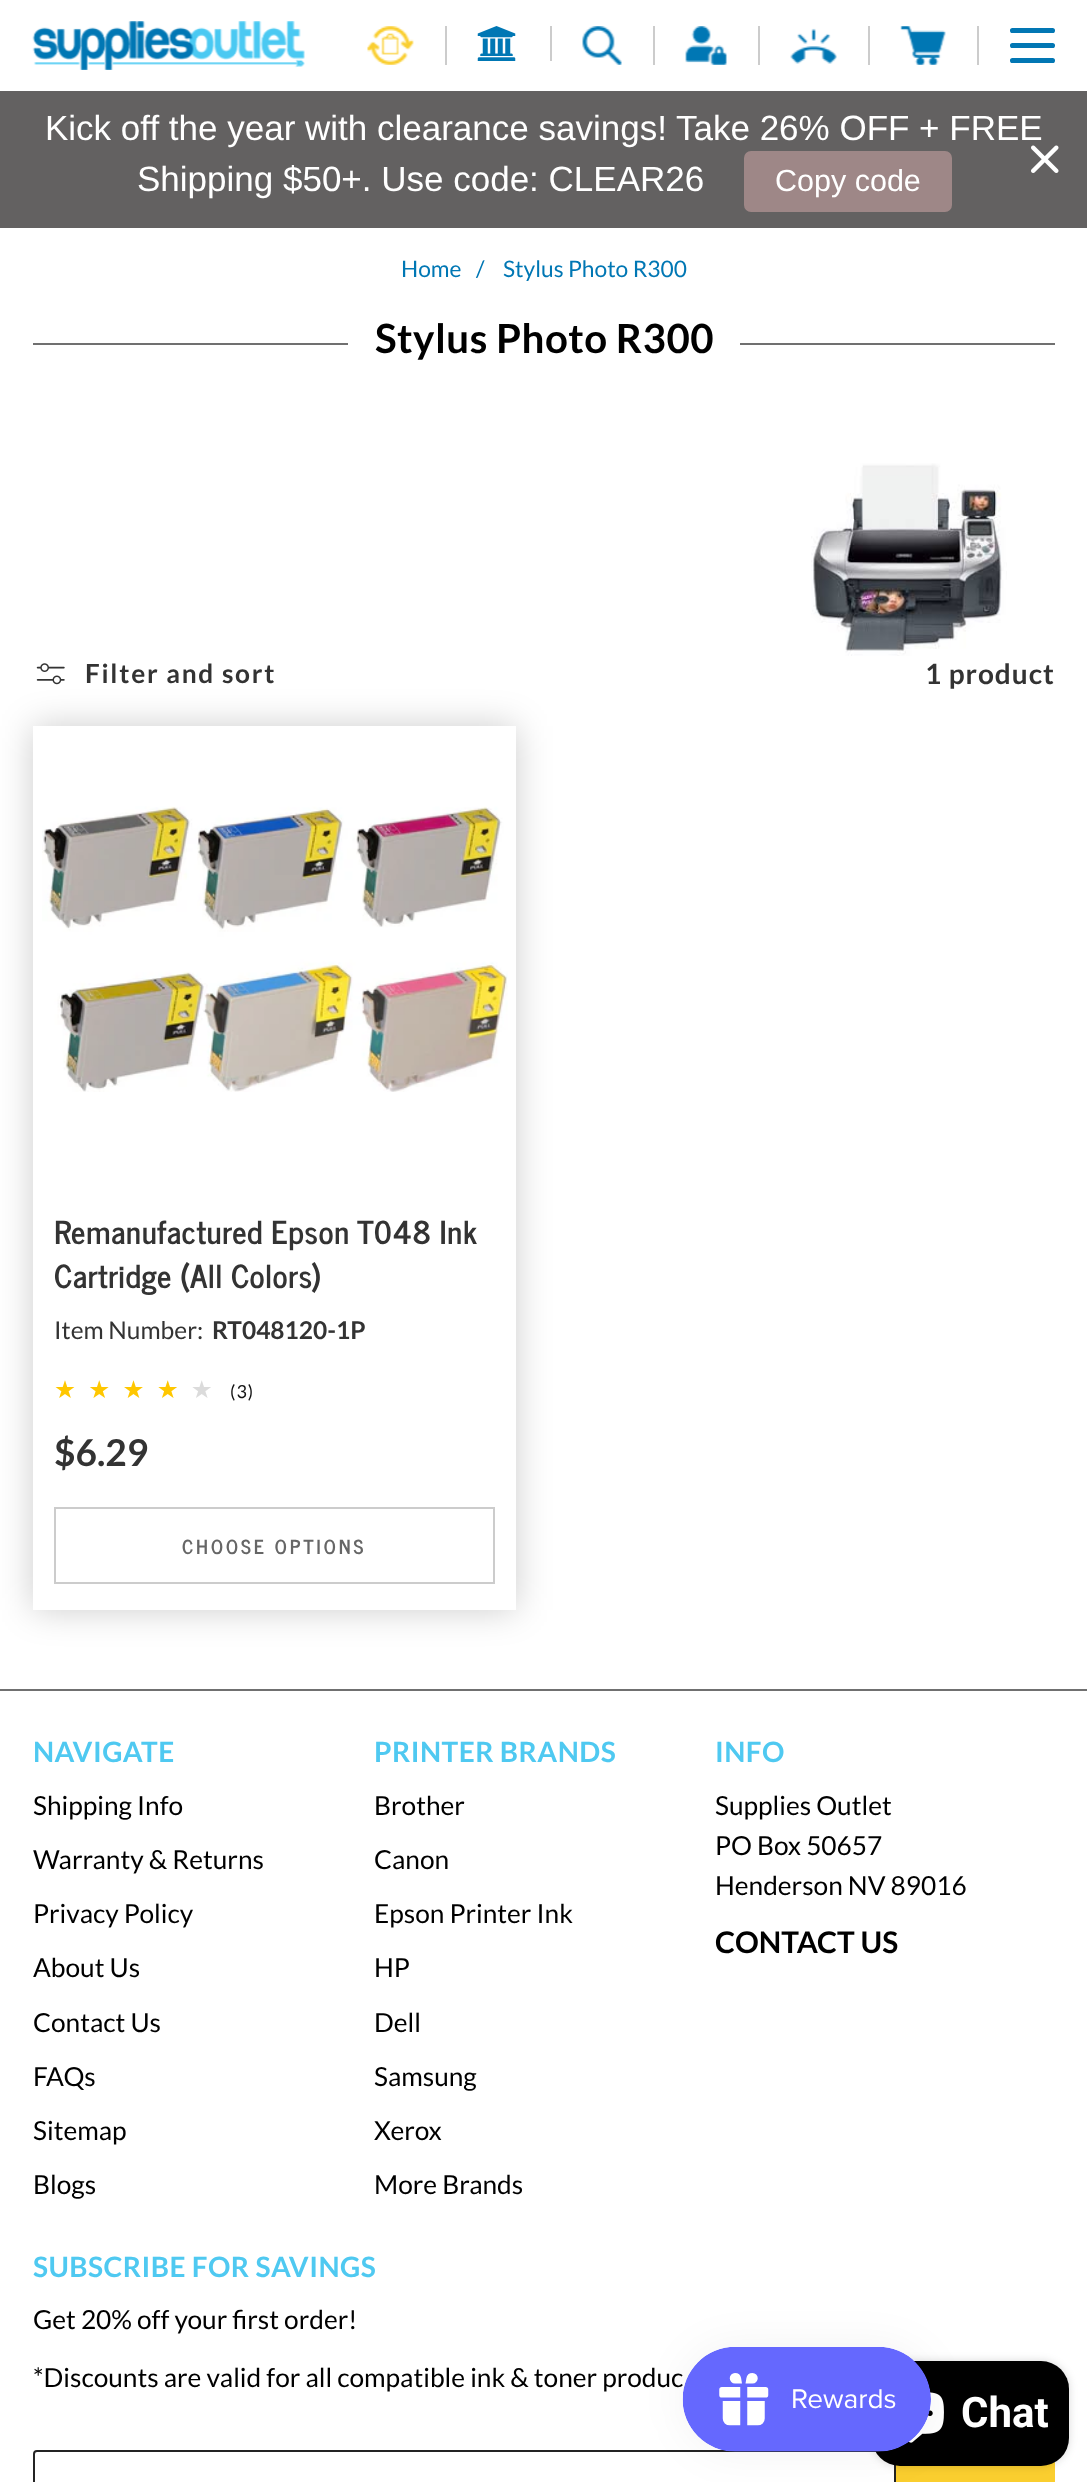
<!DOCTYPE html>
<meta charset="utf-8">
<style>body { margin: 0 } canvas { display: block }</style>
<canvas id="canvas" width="1087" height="2482"></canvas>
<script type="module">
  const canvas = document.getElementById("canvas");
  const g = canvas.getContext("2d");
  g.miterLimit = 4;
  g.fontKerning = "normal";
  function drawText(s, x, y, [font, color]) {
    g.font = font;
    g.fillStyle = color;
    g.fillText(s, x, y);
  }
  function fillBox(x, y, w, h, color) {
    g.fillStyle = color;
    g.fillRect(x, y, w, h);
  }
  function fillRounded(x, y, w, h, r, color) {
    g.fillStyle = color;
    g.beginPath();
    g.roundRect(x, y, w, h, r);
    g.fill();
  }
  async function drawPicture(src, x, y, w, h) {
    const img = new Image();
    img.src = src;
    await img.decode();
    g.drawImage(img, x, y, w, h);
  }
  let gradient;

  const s1 = ["35px Liberation Sans", "#FFFFFF"];
  const s2 = ["30.5px Liberation Sans", "#FFFFFF"];
  const s3 = ["22.75px Lato", "#0077B4"];
  const s4 = ["bold 40.25px Lato", "#000000"];
  const s5 = ["bold 26.25px Lato", "#333333"];
  const s6 = ["bold 28px Lato", "#333333"];
  const s7 = ["bold 31.5px News Cycle", "#333333"];
  const s8 = ["24.5px Lato", "#333333"];
  const s9 = ["bold 24.5px Lato", "#333333"];
  const s10 = ["18px Lato", "#121212"];
  const s11 = ["bold 37px Lato", "#333333"];
  const s12 = ["bold 19.25px News Cycle", "#666666"];
  const s13 = ["bold 28px Lato", "#4FC9F1"];
  const s14 = ["26.25px Lato", "#000000"];
  const s15 = ["bold 29.75px Lato", "#000000"];
  const s16 = ["bold 42px Roboto", "#FFFFFF"];

  fillBox(0, 0, 1087, 2482, "#FFFFFF");
  await drawPicture("pic1.png", 32, 21, 273, 49);
  fillBox(445, 26, 2, 39, "#CCCCCC");
  await drawPicture("pic2.png", 367, 26, 47, 39);
  fillBox(550, 26, 2, 35, "#CCCCCC");
  await drawPicture("pic3.png", 477, 26, 39, 35);
  fillBox(653, 26, 2, 39, "#CCCCCC");
  await drawPicture("pic4.png", 582, 26, 40, 39);
  fillBox(758, 26, 2, 39, "#CCCCCC");
  await drawPicture("pic5.png", 685, 26, 42, 39);
  fillBox(868, 26, 2, 39, "#CCCCCC");
  await drawPicture("pic6.png", 790, 28, 47, 36);
  fillBox(977, 26, 2, 39, "#CCCCCC");
  await drawPicture("pic7.png", 900, 26, 46, 39);
  g.beginPath();
  g.moveTo(1012.5, 60.5);
  g.lineTo(1052.5, 60.5);
  g.moveTo(1012.5, 45.5);
  g.lineTo(1052.5, 45.5);
  g.moveTo(1012.5, 30.5);
  g.lineTo(1052.5, 30.5);
  g.strokeStyle = "#0277B4";
  g.lineWidth = 5.1;
  g.lineCap = "round";
  g.stroke();
  fillBox(0, 91, 1087, 137, "#636161");
  drawText("Kick off the year with clearance savings! Take 26% OFF + FREE", 45, 140, s1);
  drawText("Shipping $50+. Use code: CLEAR26", 137, 191, s1);
  fillRounded(744, 151, 208, 61, 7, "#9E8787");
  drawText("Copy code", 775, 191, s2);
  await drawPicture("pic8.png", 1031, 145, 28, 28);
  drawText("Home", 401, 277, s3);
  drawText("/", 476, 277, s3);
  drawText("Stylus Photo R300", 503, 277, s3);
  fillBox(33, 343, 1022, 2, "#707070");
  fillBox(348, 343, 392, 2, "#FFFFFF");
  g.letterSpacing = "0.45px";
  drawText("Stylus Photo R300", 375, 353, s4);
  await drawPicture("pic9.png", 811, 463, 196, 193);
  await drawPicture("pic10.png", 36, 663, 29, 22);
  g.letterSpacing = "1.75px";
  drawText("Filter and sort", 85, 683, s5);
  g.letterSpacing = "1px";
  drawText("1 product", 925, 684, s6);
  g.fillStyle = "rgba(0, 0, 0, 0.2)";
  g.filter = "blur(17.5px)";
  g.beginPath();
  g.rect(33, 726, 483, 884);
  g.fill();
  g.filter = "none";
  fillBox(33, 726, 483, 884, "#FFFFFF");
  await drawPicture("pic11.png", 42, 806, 466, 286);
  g.letterSpacing = "0.45px";
  drawText("Remanufactured Epson T048 Ink", 54, 1244, s7);
  drawText("Cartridge (All Colors)", 54, 1288, s7);
  g.letterSpacing = "0px";
  drawText("Item Number:", 54, 1339, s8);
  drawText("RT048120-1P", 212, 1339, s9);
  g.letterSpacing = "12.25px";
  g.font = "24.5px DejaVu Sans";
  gradient = g.createLinearGradient(54, 1390, 225, 1390);
  gradient.addColorStop(0.8, "#FFC700");
  gradient.addColorStop(0.8, "#DBDBDB");
  g.fillStyle = gradient;
  g.fillText("★★★★★", 54, 1398);
  g.letterSpacing = "1px";
  drawText("(3)", 230, 1398, s10);
  g.letterSpacing = "0px";
  drawText("$6.29", 54, 1466, s11);
  g.strokeStyle = "#CCCCCC";
  g.lineWidth = 2;
  g.strokeRect(55, 1508, 439, 75);
  g.letterSpacing = "3px";
  drawText("CHOOSE OPTIONS", 182, 1554, s12);
  fillBox(0, 1689, 1087, 2, "#707070");
  g.letterSpacing = "0.45px";
  drawText("NAVIGATE", 33, 1762, s13);
  g.letterSpacing = "0px";
  drawText("Shipping Info", 33, 1815, s14);
  drawText("Warranty & Returns", 33, 1869, s14);
  drawText("Privacy Policy", 33, 1923, s14);
  drawText("About Us", 33, 1977, s14);
  drawText("Contact Us", 33, 2032, s14);
  drawText("FAQs", 33, 2086, s14);
  drawText("Sitemap", 33, 2140, s14);
  drawText("Blogs", 33, 2194, s14);
  g.letterSpacing = "0.45px";
  drawText("PRINTER BRANDS", 374, 1762, s13);
  g.letterSpacing = "0px";
  drawText("Brother", 374, 1815, s14);
  drawText("Canon", 374, 1869, s14);
  drawText("Epson Printer Ink", 374, 1923, s14);
  drawText("HP", 374, 1977, s14);
  drawText("Dell", 374, 2032, s14);
  drawText("Samsung", 374, 2086, s14);
  drawText("Xerox", 374, 2140, s14);
  drawText("More Brands", 374, 2194, s14);
  g.letterSpacing = "0.45px";
  drawText("INFO", 715, 1762, s13);
  g.letterSpacing = "0px";
  drawText("Supplies Outlet", 715, 1815, s14);
  drawText("PO Box 50657", 715, 1855, s14);
  drawText("Henderson NV 89016", 715, 1895, s14);
  drawText("CONTACT US", 715, 1953, s15);
  g.letterSpacing = "0.45px";
  drawText("SUBSCRIBE FOR SAVINGS", 33, 2277, s13);
  g.letterSpacing = "0px";
  drawText("Get 20% off your first order!", 33, 2329, s14);
  drawText("*Discounts are valid for all compatible ink & toner produc", 33, 2387, s14);
  g.beginPath();
  g.roundRect(34, 2451, 861, 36, 3);
  g.strokeStyle = "#242424";
  g.stroke();
  fillBox(896, 2462, 159, 20, "#FACE2F");
  g.fillStyle = "rgba(0, 0, 0, 0.15)";
  g.filter = "blur(4.5px)";
  g.beginPath();
  g.roundRect(872, 2361, 197, 105, 28);
  g.fill();
  g.filter = "none";
  fillRounded(872, 2361, 197, 105, 28, "#000000");
  await drawPicture("pic13.png", 908, 2392, 36, 51);
  g.fillStyle = "rgba(0, 0, 0, 0.05)";
  g.filter = "blur(22px)";
  g.beginPath();
  g.roundRect(683, 2347, 248, 105, 52.5);
  g.fill();
  g.filter = "none";
  await drawPicture("pic12.png", 682, 2347, 249, 105);
  drawText("Chat", 961, 2427, s16);
</script>
